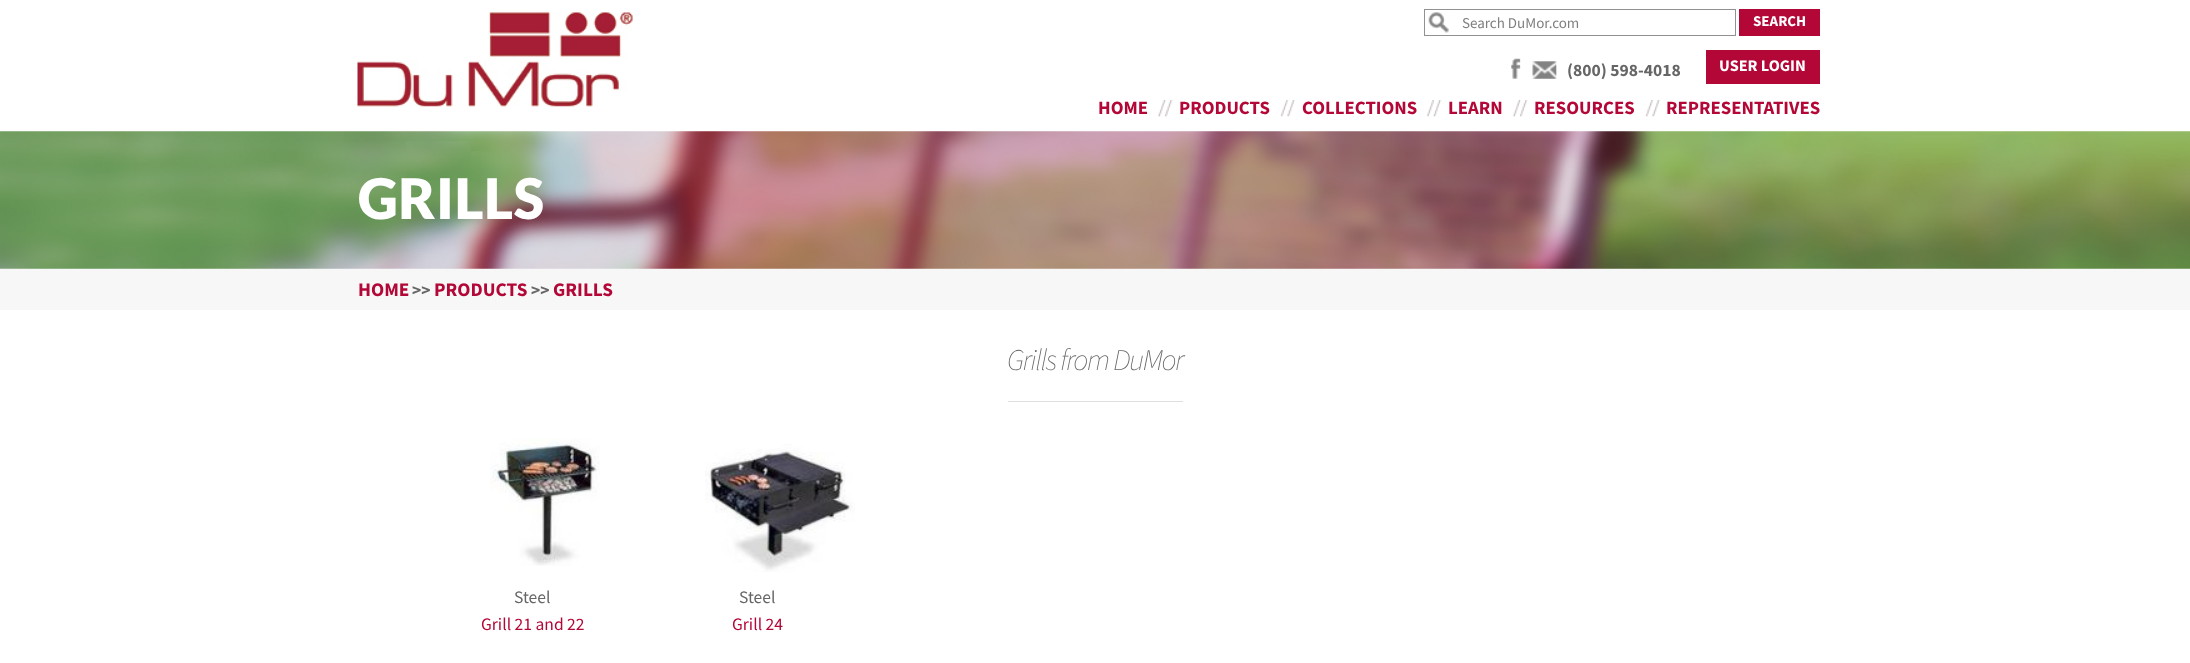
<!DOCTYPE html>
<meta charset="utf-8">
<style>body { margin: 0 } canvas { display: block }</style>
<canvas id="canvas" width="2190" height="663"></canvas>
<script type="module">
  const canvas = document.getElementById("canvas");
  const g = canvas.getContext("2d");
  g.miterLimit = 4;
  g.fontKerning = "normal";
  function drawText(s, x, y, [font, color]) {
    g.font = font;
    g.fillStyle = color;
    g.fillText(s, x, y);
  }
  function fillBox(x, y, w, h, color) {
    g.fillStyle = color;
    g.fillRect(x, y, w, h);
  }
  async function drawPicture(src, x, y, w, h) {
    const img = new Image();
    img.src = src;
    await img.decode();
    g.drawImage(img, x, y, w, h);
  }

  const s1 = ["15px Source Sans Pro", "#7F7F7F"];
  const s2 = ["bold 15px Source Sans Pro", "#FFFFFF"];
  const s3 = ["bold 17.5px Source Sans Pro", "#666666"];
  const s4 = ["bold 16.25px Source Sans Pro", "#FFFFFF"];
  const s5 = ["bold 18.75px Source Sans Pro", "#B30737"];
  const s6 = ["900 56px Lato", "#FFFFFF"];
  const s7 = ["bold 19.25px Source Sans Pro", "#B30737"];
  const s8 = ["italic 200 30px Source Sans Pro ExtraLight", "#666666"];
  const s9 = ["17.5px Source Sans Pro", "#666666"];
  const s10 = ["17.5px Source Sans Pro", "#B30737"];

  fillBox(0, 0, 2190, 663, "#FFFFFF");
  await drawPicture("pic1.png", 357, 12, 276, 95);
  await drawPicture("pic2.png", 1428, 12, 21, 21);
  g.strokeStyle = "#919191";
  g.strokeRect(1424.5, 9.5, 311, 26);
  drawText("Search DuMor.com", 1462, 28, s1);
  fillBox(1739, 9, 81, 27, "#B30737");
  drawText("SEARCH", 1753, 26, s2);
  await drawPicture("pic3.png", 1511, 58, 10, 21);
  await drawPicture("pic4.png", 1532, 61, 25, 18);
  drawText("(800) 598-4018", 1567, 76, s3);
  fillBox(1706, 50, 114, 34, "#B30737");
  drawText("USER LOGIN", 1719, 71, s4);
  await drawPicture("pic5.png", 1157, 100, 16, 17);
  drawText("HOME", 1098, 114, s5);
  await drawPicture("pic6.png", 1280, 100, 15, 17);
  drawText("PRODUCTS", 1179, 114, s5);
  await drawPicture("pic7.png", 1426, 100, 16, 17);
  drawText("COLLECTIONS", 1302, 114, s5);
  await drawPicture("pic8.png", 1512, 100, 16, 17);
  drawText("LEARN", 1448, 114, s5);
  await drawPicture("pic6.png", 1645, 100, 15, 17);
  drawText("RESOURCES", 1534, 114, s5);
  drawText("REPRESENTATIVES", 1666, 114, s5);
  await drawPicture("pic9.png", 0, 131, 2190, 179);
  g.letterSpacing = "0.5px";
  drawText("GRILLS", 358, 219, s6);
  g.letterSpacing = "0px";
  drawText("HOME", 358, 296, s7);
  drawText(">>", 412, 296, s3);
  drawText("PRODUCTS", 434, 296, s7);
  drawText(">>", 531, 296, s3);
  drawText("GRILLS", 553, 296, s7);
  fillBox(1008, 401, 175, 1, "#E0E0E0");
  g.letterSpacing = "-1.5px";
  drawText("Grills from DuMor", 1007, 370, s8);
  await drawPicture("pic10.png", 490, 438, 110, 128);
  g.letterSpacing = "0px";
  drawText("Steel", 514, 603, s9);
  drawText("Grill 21 and 22", 481, 630, s10);
  await drawPicture("pic11.png", 705, 444, 150, 128);
  drawText("Steel", 739, 603, s9);
  drawText("Grill 24", 732, 630, s10);
</script>
